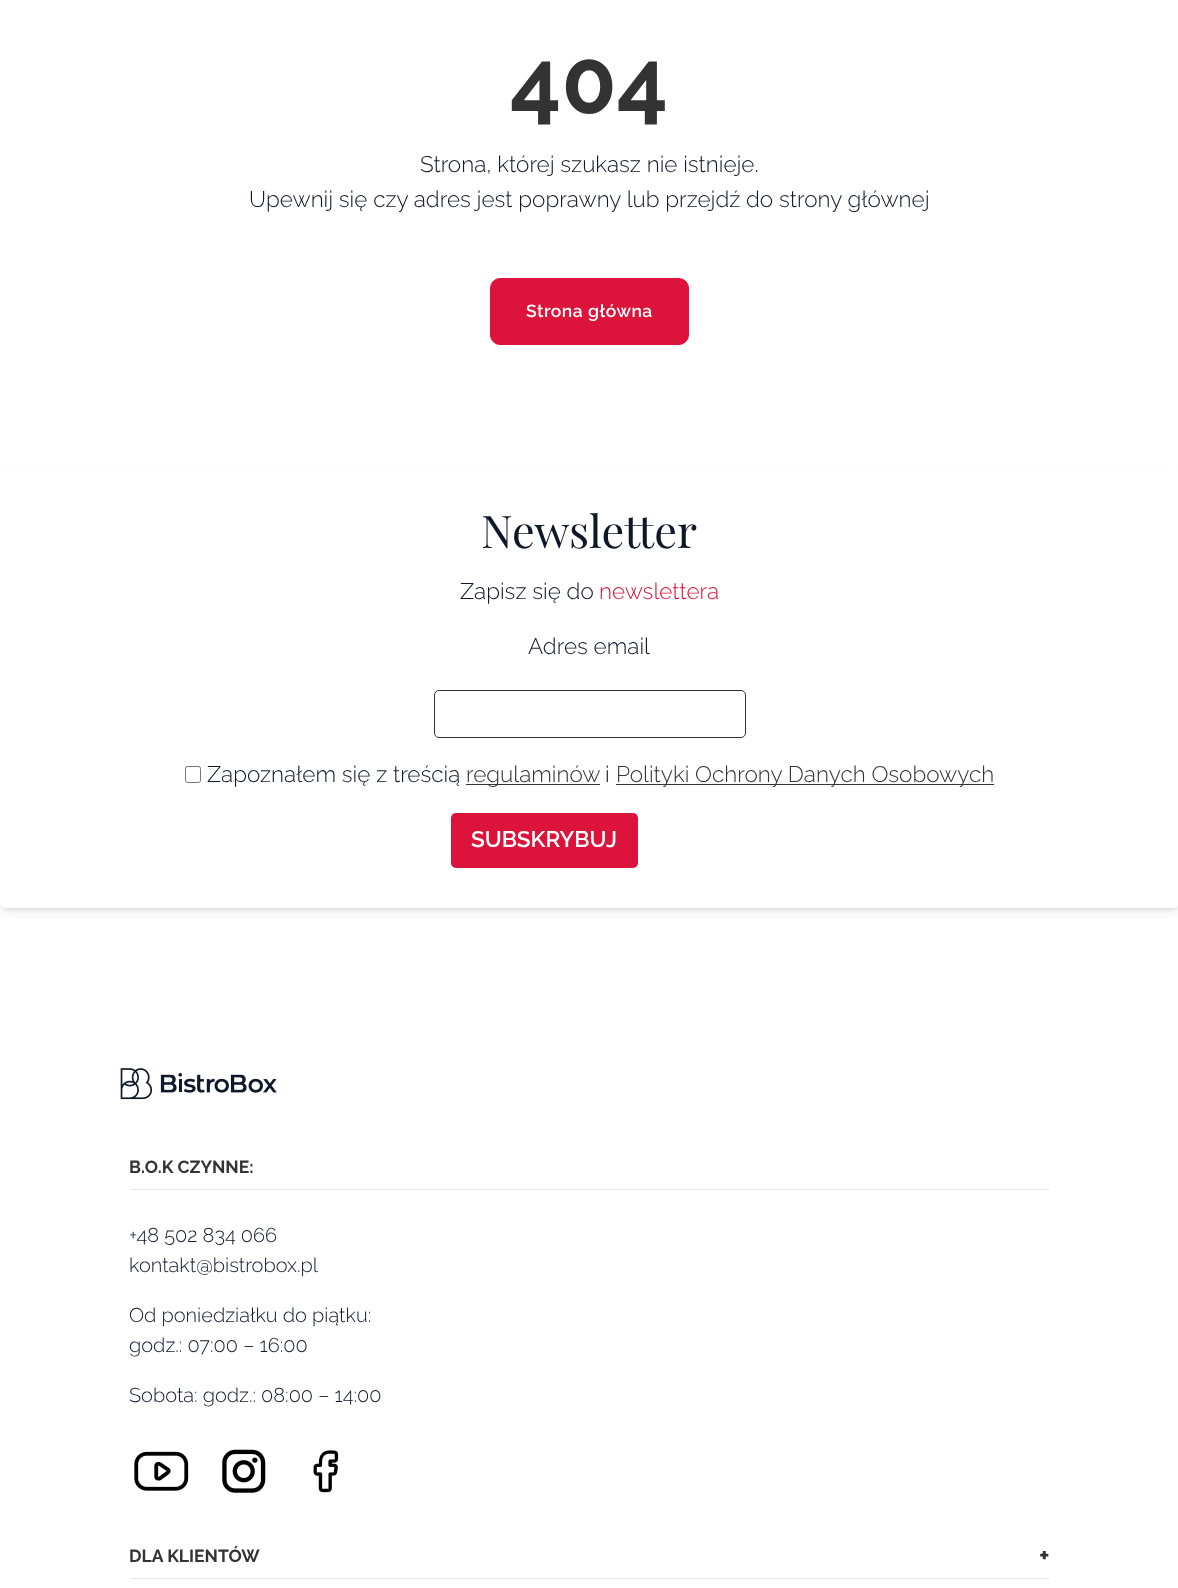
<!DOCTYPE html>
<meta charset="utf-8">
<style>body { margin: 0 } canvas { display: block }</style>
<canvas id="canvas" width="1178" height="1588"></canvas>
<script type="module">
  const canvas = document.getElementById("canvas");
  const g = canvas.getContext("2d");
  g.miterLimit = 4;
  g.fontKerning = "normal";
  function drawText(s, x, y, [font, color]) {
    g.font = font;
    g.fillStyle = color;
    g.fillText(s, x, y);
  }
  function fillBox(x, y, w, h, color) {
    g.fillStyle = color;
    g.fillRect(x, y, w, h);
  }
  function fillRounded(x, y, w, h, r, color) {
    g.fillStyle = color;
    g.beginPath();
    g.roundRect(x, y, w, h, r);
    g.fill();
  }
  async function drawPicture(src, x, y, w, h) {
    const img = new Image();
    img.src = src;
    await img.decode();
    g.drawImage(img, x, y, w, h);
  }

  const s1 = ["bold 90px Raleway", "#333333"];
  const s2 = ["300 22.5px Raleway", "#0F172A"];
  const s3 = ["600 17.5px Raleway", "#FFFFFF"];
  const s4 = ["45px Playfair Display", "#0F172A"];
  const s5 = ["300 22.5px Raleway", "#DC143C"];
  const s6 = ["300 22.5px Raleway", "#333333"];
  const s7 = ["600 22.5px Raleway", "#FFFFFF"];
  const s8 = ["bold 17.5px Raleway", "#333333"];
  const s9 = ["300 20px Raleway", "#0F172A"];
  const s10 = ["bold 25px Raleway", "#333333"];

  fillBox(0, 0, 1178, 1588, "#FFFFFF");
  drawText("404", 510, 113, s1);
  drawText("Strona, której szukasz nie istnieje.", 420, 172, s2);
  drawText("Upewnij się czy adres jest poprawny lub przejdź do strony głównej", 249, 207, s2);
  g.fillStyle = "#DC143C";
  g.beginPath();
  g.roundRect(490.5, 278.5, 198, 66, 9.5);
  g.fill();
  g.strokeStyle = "#DC143C";
  g.stroke();
  g.letterSpacing = "0.5px";
  drawText("Strona główna", 526, 317, s3);
  g.fillStyle = "rgba(0, 0, 0, 0.1)";
  g.filter = "blur(2.5px)";
  g.beginPath();
  g.roundRect(3, 470, 1173, 438, 2.5);
  g.fill();
  g.filter = "none";
  g.filter = "blur(4px)";
  g.beginPath();
  g.roundRect(1, 471, 1177, 440, 4);
  g.fill();
  g.filter = "none";
  fillRounded(0, 465, 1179, 443, 5, "#FFFFFF");
  g.letterSpacing = "0px";
  drawText("Newsletter", 481, 548, s4);
  drawText("Zapisz się do", 460, 599, s2);
  drawText("newslettera", 599, 599, s5);
  drawText("Adres email", 528, 654, s2);
  g.beginPath();
  g.roundRect(434.5, 690.5, 311, 47, 4.5);
  g.strokeStyle = "#31323A";
  g.stroke();
  g.beginPath();
  g.roundRect(185.5, 766.5, 15, 16, 2);
  g.strokeStyle = "#767676";
  g.stroke();
  drawText("Zapoznałem się z treścią", 207, 782, s2);
  fillBox(466, 784, 134, 1, "#333333");
  drawText("regulaminów", 466, 782, s6);
  drawText("i", 605, 782, s2);
  fillBox(616, 784, 378, 1, "#333333");
  drawText("Polityki Ochrony Danych Osobowych", 616, 782, s6);
  fillRounded(451, 813, 187, 55, 5, "#DC143C");
  drawText("SUBSKRYBUJ", 471, 847, s7);
  await drawPicture("pic1.png", 120, 1068, 157, 32);
  fillBox(130, 1189, 920, 1, "#E6E6E6");
  drawText("B.O.K CZYNNE:", 129, 1173, s8);
  drawText("+48 502 834 066", 129, 1242, s9);
  drawText("kontakt@bistrobox.pl", 129, 1272, s9);
  drawText("Od poniedziałku do piątku:", 129, 1322, s9);
  drawText("godz.: 07:00 – 16:00", 129, 1352, s9);
  drawText("Sobota: godz.: 08:00 – 14:00", 129, 1402, s9);
  await drawPicture("pic2.png", 134, 1451, 55, 40);
  await drawPicture("pic3.png", 222, 1449, 44, 44);
  await drawPicture("pic4.png", 313, 1450, 26, 43);
  fillBox(130, 1578, 920, 1, "#E6E6E6");
  drawText("DLA KLIENTÓW", 129, 1562, s8);
  drawText("+", 1039, 1564, s10);
</script>
